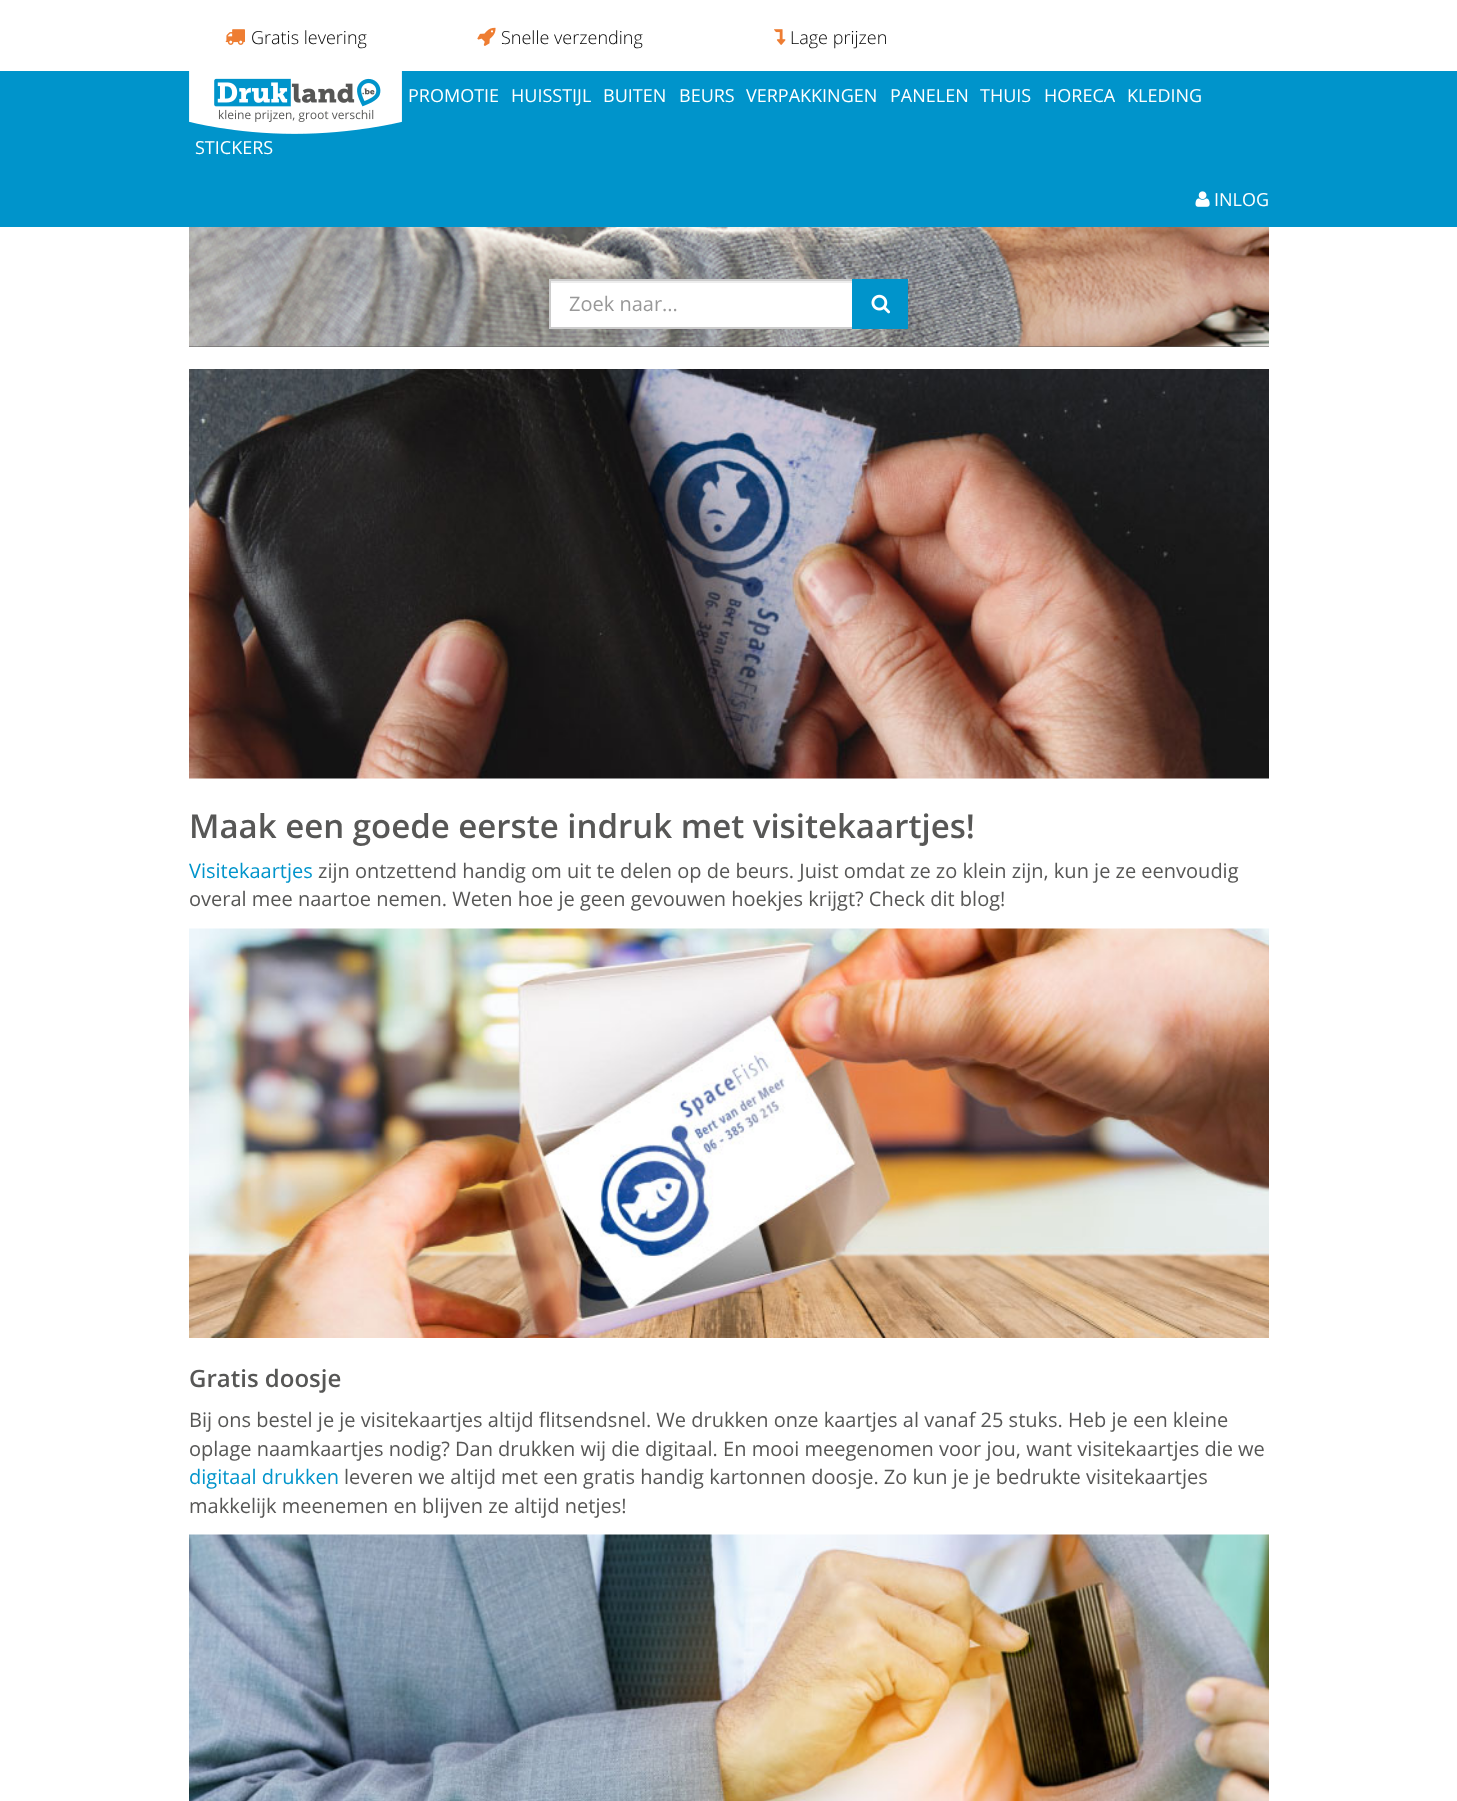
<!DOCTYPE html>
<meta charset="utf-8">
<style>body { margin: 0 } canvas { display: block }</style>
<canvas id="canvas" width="1457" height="1801"></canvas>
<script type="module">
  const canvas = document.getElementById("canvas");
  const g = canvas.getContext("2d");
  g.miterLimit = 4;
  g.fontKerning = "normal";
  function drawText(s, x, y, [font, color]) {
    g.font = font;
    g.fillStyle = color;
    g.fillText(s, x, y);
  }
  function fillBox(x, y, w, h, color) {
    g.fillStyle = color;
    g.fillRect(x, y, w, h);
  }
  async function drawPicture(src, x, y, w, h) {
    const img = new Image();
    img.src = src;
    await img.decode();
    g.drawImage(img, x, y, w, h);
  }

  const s1 = ["300 18px Open Sans", "#000000"];
  const s2 = ["18px Open Sans", "#FFFFFF"];
  const s3 = ["20px Open Sans", "#999999"];
  const s4 = ["600 33px Open Sans", "#575756"];
  const s5 = ["20px Open Sans", "#0094CB"];
  const s6 = ["20px Open Sans", "#575756"];
  const s7 = ["600 24px Open Sans", "#575756"];

  fillBox(0, 0, 1457, 1801, "#FFFFFF");
  await drawPicture("pic1.png", 225, 29, 20, 16);
  drawText("Gratis levering", 251, 44, s1);
  await drawPicture("pic2.png", 477, 27, 19, 19);
  drawText("Snelle verzending", 501, 44, s1);
  await drawPicture("pic3.png", 774, 29, 12, 16);
  drawText("Lage prijzen", 790, 44, s1);
  fillBox(0, 71, 1457, 156, "#0094CB");
  await drawPicture("pic4.png", 189, 71, 213, 63);
  drawText("PROMOTIE", 408, 102, s2);
  drawText("HUISSTIJL", 511, 102, s2);
  drawText("BUITEN", 603, 102, s2);
  drawText("BEURS", 679, 102, s2);
  drawText("VERPAKKINGEN", 746, 102, s2);
  drawText("PANELEN", 890, 102, s2);
  drawText("THUIS", 980, 102, s2);
  drawText("HORECA", 1044, 102, s2);
  drawText("KLEDING", 1127, 102, s2);
  drawText("STICKERS", 195, 154, s2);
  await drawPicture("pic5.png", 1195, 191, 15, 16);
  drawText("INLOG", 1214, 206, s2);
  fillBox(189, 346, 1080, 1, "#575756");
  await drawPicture("pic6.png", 189, 227, 1080, 120);
  fillBox(551, 283, 301, 44, "#FFFFFF");
  fillBox(551, 281, 301, 2, "#ECECEC");
  g.strokeStyle = "#CCCCCC";
  g.lineWidth = 2;
  g.strokeRect(550, 280, 303, 48);
  drawText("Zoek naar...", 569, 311, s3);
  fillBox(852, 279, 56, 50, "#0094CB");
  await drawPicture("pic7.png", 871, 294, 19, 20);
  await drawPicture("pic8.png", 189, 369, 1080, 410);
  drawText("Maak een goede eerste indruk met visitekaartjes!", 189, 838, s4);
  drawText("Visitekaartjes", 189, 878, s5);
  drawText("zijn ontzettend handig om uit te delen op de beurs. Juist omdat ze zo klein zijn, kun je ze eenvoudig", 318, 878, s6);
  drawText("overal mee naartoe nemen. Weten hoe je geen gevouwen hoekjes krijgt? Check dit blog!", 189, 906, s6);
  await drawPicture("pic9.png", 189, 928, 1080, 410);
  drawText("Gratis doosje", 189, 1387, s7);
  drawText("Bij ons bestel je je visitekaartjes altijd flitsendsnel. We drukken onze kaartjes al vanaf 25 stuks. Heb je een kleine", 189, 1427, s6);
  drawText("oplage naamkaartjes nodig? Dan drukken wij die digitaal. En mooi meegenomen voor jou, want visitekaartjes die we", 189, 1456, s6);
  drawText("digitaal drukken", 189, 1484, s5);
  drawText("leveren we altijd met een gratis handig kartonnen doosje. Zo kun je je bedrukte visitekaartjes", 344, 1484, s6);
  drawText("makkelijk meenemen en blijven ze altijd netjes!", 189, 1513, s6);
  await drawPicture("pic10.png", 189, 1534, 1080, 267);
</script>
